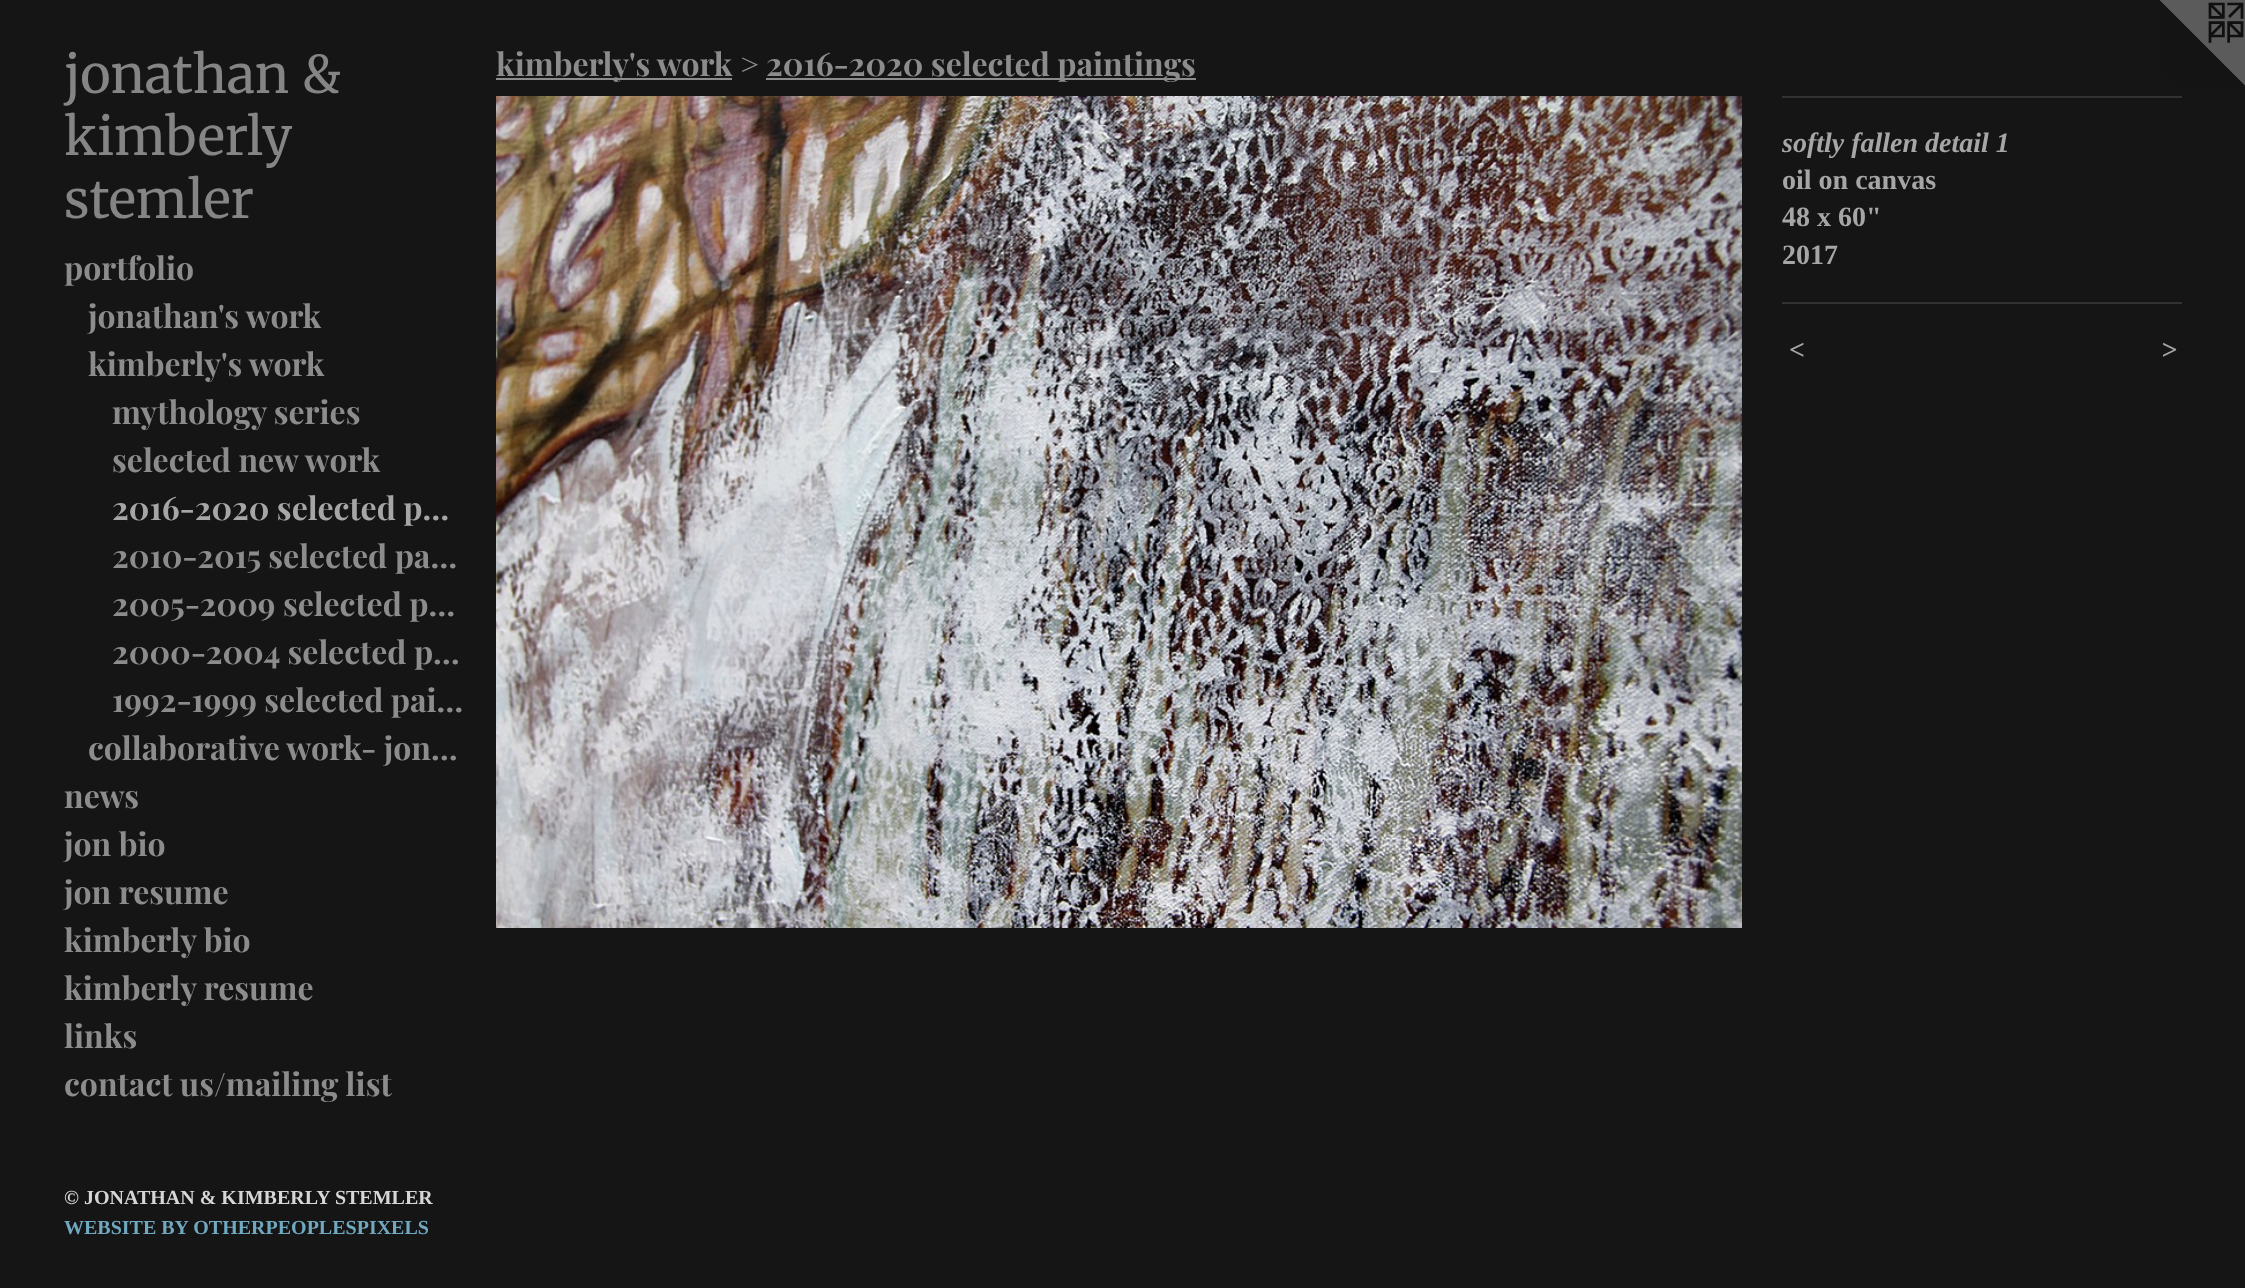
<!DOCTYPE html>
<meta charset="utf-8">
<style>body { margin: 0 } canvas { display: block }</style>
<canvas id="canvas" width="2245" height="1288"></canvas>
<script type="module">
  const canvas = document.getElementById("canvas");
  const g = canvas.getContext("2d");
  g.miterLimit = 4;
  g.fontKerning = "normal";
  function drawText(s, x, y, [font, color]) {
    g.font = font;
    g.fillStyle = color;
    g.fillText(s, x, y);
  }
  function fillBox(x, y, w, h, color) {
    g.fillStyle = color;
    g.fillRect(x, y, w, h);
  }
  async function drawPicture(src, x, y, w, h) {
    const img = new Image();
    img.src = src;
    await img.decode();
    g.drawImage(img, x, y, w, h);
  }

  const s1 = ["300 52px Merriweather", "#858585"];
  const s2 = ["bold 32px Playfair Display", "#8C8C8C"];
  const s3 = ["bold 32px Playfair Display", "#A6A6A6"];
  const s4 = ["bold 20px Liberation Serif", "#D6D6D6"];
  const s5 = ["bold 20px Liberation Serif", "#70A8C0"];
  const s6 = ["italic bold 28px Liberation Serif", "#A6A6A6"];
  const s7 = ["bold 28px Liberation Serif", "#A6A6A6"];

  fillBox(0, 0, 2245, 1288, "#151515");
  drawText("jonathan &", 64, 93, s1);
  drawText("kimberly", 64, 155, s1);
  drawText("stemler", 64, 218, s1);
  drawText("portfolio", 64, 280, s2);
  drawText("jonathan's work", 88, 328, s2);
  drawText("kimberly's work", 88, 376, s2);
  drawText("mythology series", 112, 424, s2);
  drawText("selected new work", 112, 472, s2);
  drawText("2016-2020 selected p…", 112, 520, s3);
  drawText("2010-2015 selected pa…", 112, 568, s2);
  drawText("2005-2009 selected p…", 112, 616, s2);
  drawText("2000-2004 selected p…", 112, 664, s2);
  drawText("1992-1999 selected pai…", 112, 712, s2);
  drawText("collaborative work- jon…", 88, 760, s2);
  drawText("news", 64, 808, s2);
  drawText("jon bio", 64, 856, s2);
  drawText("jon resume", 64, 904, s2);
  drawText("kimberly bio", 64, 952, s2);
  drawText("kimberly resume", 64, 1000, s2);
  drawText("links", 64, 1048, s2);
  drawText("contact us/mailing list", 64, 1096, s2);
  drawText("© JONATHAN & KIMBERLY STEMLER", 64, 1204, s4);
  drawText("WEBSITE BY OTHERPEOPLESPIXELS", 64, 1234, s5);
  fillBox(496, 78, 236, 2, "#8C8C8C");
  drawText("kimberly's work >", 496, 76, s2);
  fillBox(766, 78, 430, 2, "#8C8C8C");
  drawText("2016-2020 selected paintings", 766, 76, s2);
  await drawPicture("pic1.png", 496, 96, 1246, 832);
  fillBox(1782, 96, 400, 2, "#323232");
  drawText("softly fallen detail 1", 1782, 152, s6);
  drawText("oil on canvas", 1782, 189, s7);
  drawText("48 x 60\"", 1782, 226, s7);
  drawText("2017", 1782, 264, s7);
  fillBox(1782, 302, 400, 2, "#323232");
  g.letterSpacing = "2px";
  drawText("<", 1789, 359, s6);
  drawText(">", 2161, 359, s6);
  await drawPicture("pic2.png", 2160, 0, 85, 86);
</script>
